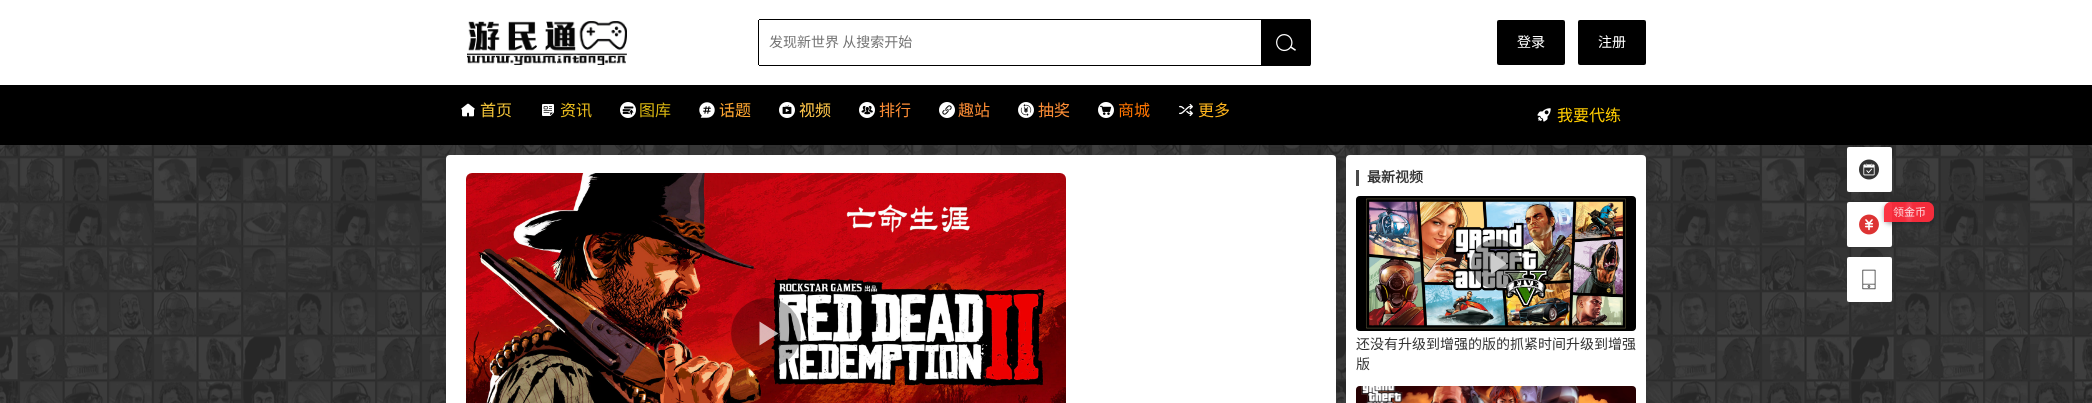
<!DOCTYPE html>
<meta charset="utf-8">
<style>body { margin: 0 } canvas { display: block }</style>
<canvas id="canvas" width="2092" height="403"></canvas>
<script type="module">
  const canvas = document.getElementById("canvas");
  const g = canvas.getContext("2d");
  g.miterLimit = 4;
  g.fontKerning = "normal";
  function drawText(s, x, y, [font, color]) {
    g.font = font;
    g.fillStyle = color;
    g.fillText(s, x, y);
  }
  function fillBox(x, y, w, h, color) {
    g.fillStyle = color;
    g.fillRect(x, y, w, h);
  }
  function fillRounded(x, y, w, h, r, color) {
    g.fillStyle = color;
    g.beginPath();
    g.roundRect(x, y, w, h, r);
    g.fill();
  }
  async function drawPicture(src, x, y, w, h) {
    const img = new Image();
    img.src = src;
    await img.decode();
    g.drawImage(img, x, y, w, h);
  }
  let gradient;

  const s1 = ["14px Noto Sans CJK SC", "#757575"];
  const s2 = ["14px Noto Sans CJK SC", "#FFFFFF"];
  const s3 = ["16px Noto Sans CJK SC", "#F0C239"];
  const s4 = ["16px Noto Sans CJK SC", "#E9BB1D"];
  const s5 = ["16px Noto Sans CJK SC", "#D9B611"];
  const s6 = ["16px Noto Sans CJK SC", "#FFA631"];
  const s7 = ["16px Noto Sans CJK SC", "#FFC64B"];
  const s8 = ["16px Noto Sans CJK SC", "#FA8C35"];
  const s9 = ["16px Noto Sans CJK SC", "#FF7500"];
  const s10 = ["16px Noto Sans CJK SC", "#FFB61E"];
  const s11 = ["16px Noto Sans CJK SC", "#FFCC00"];
  const s12 = ["bold 14px Noto Sans CJK SC", "#333333"];
  const s13 = ["14px Noto Sans CJK SC", "#333333"];
  const s14 = ["11px Noto Sans CJK SC", "#FDD6D9"];

  fillBox(0, 0, 2092, 403, "#FFFFFF");
  await drawPicture("pic1.png", 0, 145, 2092, 258);
  await drawPicture("pic2.png", 467, 21, 160, 44);
  fillBox(759, 19, 502, 1, "#000000");
  fillBox(759, 65, 502, 1, "#000000");
  fillBox(758, 20, 1, 45, "#000000");
  drawText("发现新世界 从搜索开始", 769, 47, s1);
  g.fillStyle = "#000000";
  g.beginPath();
  g.roundRect(1261, 19, 50, 47, [0, 2, 2, 0]);
  g.fill();
  fillBox(1309, 19, 1, 1, "#000000");
  fillBox(1309, 65, 1, 1, "#000000");
  await drawPicture("pic3.png", 1276, 34, 20, 18);
  fillRounded(1497, 20, 68, 45, 2, "#000000");
  drawText("登录", 1517, 47, s2);
  fillRounded(1578, 20, 68, 45, 2, "#000000");
  drawText("注册", 1598, 47, s2);
  fillBox(0, 85, 2092, 60, "#000000");
  await drawPicture("pic4.png", 461, 103, 14, 14);
  drawText("首页", 480, 116, s3);
  await drawPicture("pic5.png", 542, 104, 12, 12);
  drawText("资讯", 560, 116, s4);
  await drawPicture("pic6.png", 620, 102, 16, 16);
  drawText("图库", 639, 116, s5);
  await drawPicture("pic7.png", 699, 102, 16, 16);
  drawText("话题", 719, 116, s6);
  await drawPicture("pic8.png", 779, 102, 16, 16);
  drawText("视频", 799, 116, s7);
  await drawPicture("pic9.png", 859, 102, 16, 16);
  drawText("排行", 879, 116, s8);
  await drawPicture("pic10.png", 939, 102, 16, 16);
  drawText("趣站", 958, 116, s8);
  await drawPicture("pic11.png", 1018, 102, 16, 16);
  drawText("抽奖", 1038, 116, s8);
  await drawPicture("pic12.png", 1098, 102, 16, 16);
  drawText("商城", 1118, 116, s9);
  await drawPicture("pic13.png", 1179, 103, 14, 14);
  drawText("更多", 1198, 116, s10);
  await drawPicture("pic14.png", 1537, 108, 14, 14);
  drawText("我要代练", 1557, 121, s11);
  fillRounded(446, 155, 890, 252, 4, "#FFFFFF");
  await drawPicture("pic15.png", 466, 173, 600, 230);
  g.fillStyle = "rgba(0, 0, 0, 0.3)";
  g.beginPath();
  g.arc(766, 333, 35, 0, Math.PI * 2);
  g.fill();
  g.fillStyle = "rgba(255, 255, 255, 0.7)";
  g.beginPath();
  g.moveTo(769, 327.5);
  g.lineTo(778.5, 333.5);
  g.lineTo(769, 339.5);
  g.closePath();
  g.moveTo(759.5, 321.5);
  g.lineTo(769, 327.5);
  g.lineTo(769, 339.5);
  g.lineTo(759.5, 345.5);
  g.closePath();
  g.fill();
  fillRounded(1346, 155, 300, 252, 4, "#FFFFFF");
  fillBox(1356, 170, 3, 16, "#4A4A4A");
  drawText("最新视频", 1367, 182, s12);
  await drawPicture("pic16.png", 1356, 196, 280, 135);
  g.fillStyle = "rgba(0, 0, 0, 0.4)";
  g.beginPath();
  g.arc(1496, 264, 25, 0, Math.PI * 2);
  g.fill();
  await drawPicture("pic17.png", 1490, 253, 17, 21);
  drawText("还没有升级到增强的版的抓紧时间升级到增强", 1356, 349, s13);
  drawText("版", 1356, 369, s13);
  await drawPicture("pic18.png", 1356, 386, 280, 17);
  fillRounded(1847, 147, 45, 45, 2, "#FFFFFF");
  await drawPicture("pic19.png", 1859, 159, 20, 21);
  fillRounded(1847, 202, 45, 45, 2, "#FFFFFF");
  await drawPicture("pic20.png", 1859, 214, 20, 21);
  g.save();
  g.beginPath();
  g.moveTo(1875, 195);
  g.lineTo(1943, 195);
  g.lineTo(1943, 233);
  g.lineTo(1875, 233);
  g.closePath();
  g.moveTo(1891, 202);
  g.lineTo(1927, 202);
  g.bezierCurveTo(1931, 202, 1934, 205, 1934, 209);
  g.lineTo(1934, 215);
  g.bezierCurveTo(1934, 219, 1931, 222, 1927, 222);
  g.lineTo(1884, 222);
  g.lineTo(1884, 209);
  g.bezierCurveTo(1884, 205, 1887, 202, 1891, 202);
  g.closePath();
  g.clip("evenodd");
  g.fillStyle = "rgba(6, 25, 32, 0.41)";
  g.filter = "blur(2.5px)";
  g.beginPath();
  g.roundRect(1884, 204, 50, 20, 7);
  g.fill();
  g.filter = "none";
  g.restore();
  g.fillStyle = "rgba(252, 44, 60, 0.8)";
  g.beginPath();
  g.roundRect(1884, 202, 50, 20, [7, 7, 7, 0]);
  g.fill();
  gradient = g.createRadialGradient(1909, 59.62, 0, 1909, 59.62, 4.5);
  gradient.addColorStop(0, "rgba(254, 87, 111, 0.8)");
  gradient.addColorStop(1, "rgba(252, 44, 60, 0.8)");
  g.fillStyle = gradient;
  g.beginPath();
  g.roundRect(1884, 202, 50, 20, [7, 7, 7, 0]);
  g.save();
  g.clip();
  g.scale(1, 16 / 4.5);
  g.fillRect(0, 0, 2092, 114);
  g.restore();
  drawText("领金币", 1893, 216, s14);
  fillRounded(1847, 257, 45, 45, 2, "#FFFFFF");
  await drawPicture("pic21.png", 1862, 269, 14, 21);
</script>
